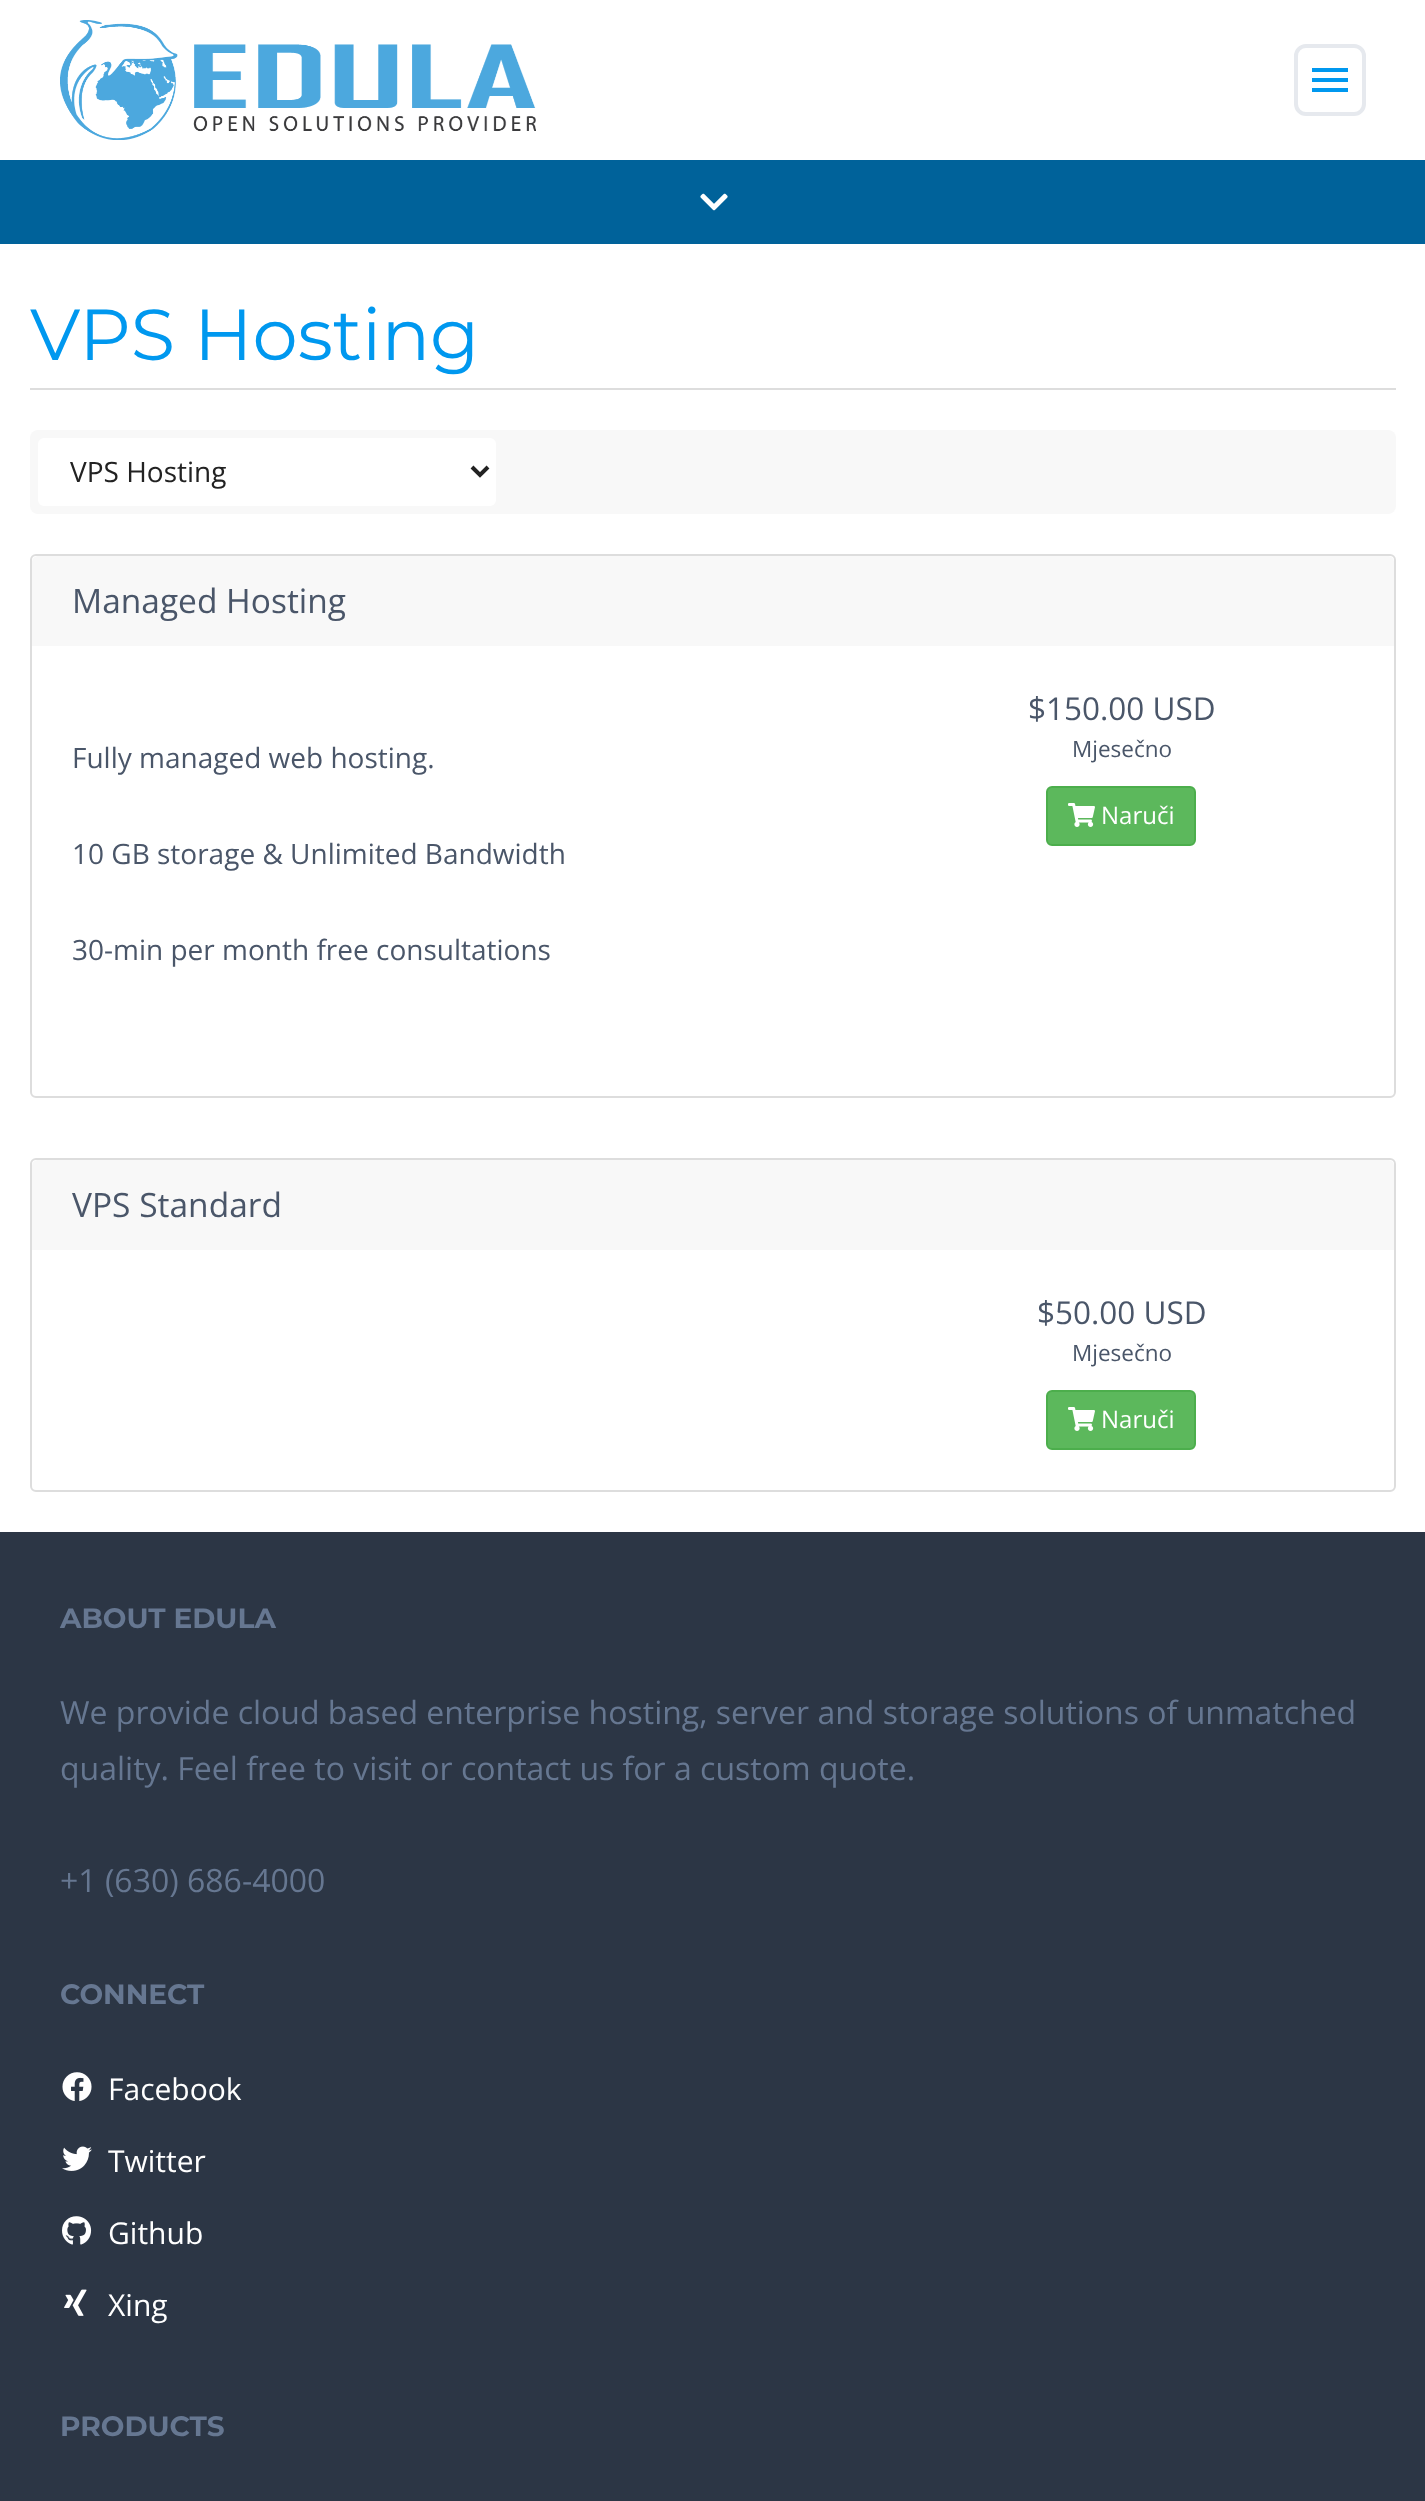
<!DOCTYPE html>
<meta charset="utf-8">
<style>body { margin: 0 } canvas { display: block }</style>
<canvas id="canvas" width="1425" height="2501"></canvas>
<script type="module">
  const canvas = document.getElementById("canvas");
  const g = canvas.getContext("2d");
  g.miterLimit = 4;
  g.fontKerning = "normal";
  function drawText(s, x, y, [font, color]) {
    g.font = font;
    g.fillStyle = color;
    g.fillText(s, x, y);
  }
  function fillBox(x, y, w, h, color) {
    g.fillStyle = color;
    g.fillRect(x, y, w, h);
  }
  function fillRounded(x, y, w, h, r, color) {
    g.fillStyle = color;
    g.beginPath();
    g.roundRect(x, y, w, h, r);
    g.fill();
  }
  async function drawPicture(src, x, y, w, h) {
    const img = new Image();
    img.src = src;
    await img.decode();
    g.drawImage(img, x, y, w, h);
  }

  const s1 = ["72px Montserrat", "#0098EF"];
  const s2 = ["28px Open Sans", "#222222"];
  const s3 = ["33.5px Open Sans", "#4A5669"];
  const s4 = ["28px Open Sans", "#4A5669"];
  const s5 = ["31.5px Open Sans", "#4A5669"];
  const s6 = ["22.5px Open Sans", "#4A5669"];
  const s7 = ["24px Open Sans", "#FFFFFF"];
  const s8 = ["bold 28px Montserrat", "#667791"];
  const s9 = ["32px Open Sans", "#667791"];
  const s10 = ["30px Open Sans", "#FFFFFF"];

  fillBox(0, 0, 1425, 2501, "#2C3645");
  fillBox(0, 0, 1425, 160, "#FFFFFF");
  await drawPicture("pic1.png", 60, 20, 476, 120);
  g.beginPath();
  g.roundRect(1296, 46, 68, 68, 10);
  g.strokeStyle = "#E6E9EE";
  g.lineWidth = 4;
  g.stroke();
  g.fillStyle = "#0098EF";
  g.beginPath();
  g.moveTo(1312, 68);
  g.lineTo(1348, 68);
  g.lineTo(1348, 72);
  g.lineTo(1312, 72);
  g.closePath();
  g.moveTo(1312, 82);
  g.lineTo(1312, 78);
  g.lineTo(1348, 78);
  g.lineTo(1348, 82);
  g.closePath();
  g.moveTo(1312, 92);
  g.lineTo(1312, 88);
  g.lineTo(1348, 88);
  g.lineTo(1348, 92);
  g.closePath();
  g.fill();
  fillBox(0, 160, 1425, 84, "#00629A");
  await drawPicture("pic2.png", 700, 193, 28, 18);
  fillBox(0, 244, 1425, 1288, "#FFFFFF");
  fillBox(30, 388, 1366, 2, "#DDDDDD");
  drawText("VPS Hosting", 30, 360, s1);
  fillRounded(30, 430, 1366, 84, 8, "#F8F8F8");
  fillRounded(38, 438, 458, 68, 6, "#FFFFFF");
  g.beginPath();
  g.moveTo(472, 467);
  g.lineTo(480, 475);
  g.lineTo(488, 467);
  g.strokeStyle = "#222222";
  g.stroke();
  drawText("VPS Hosting", 70, 482, s2);
  g.beginPath();
  g.roundRect(31, 555, 1364, 542, 5);
  g.strokeStyle = "#DDDDDD";
  g.lineWidth = 2;
  g.stroke();
  g.fillStyle = "#F8F8F8";
  g.beginPath();
  g.roundRect(32, 556, 1362, 90, [6, 6, 0, 0]);
  g.fill();
  drawText("Managed Hosting", 72, 613, s3);
  drawText("Fully managed web hosting.", 72, 768, s4);
  drawText("10 GB storage & Unlimited Bandwidth", 72, 864, s4);
  drawText("30-min per month free consultations", 72, 960, s4);
  drawText("$150.00 USD", 1028, 720, s5);
  drawText("Mjesečno", 1072, 757, s6);
  g.fillStyle = "#5CB85C";
  g.beginPath();
  g.roundRect(1047, 787, 148, 58, 5);
  g.fill();
  g.strokeStyle = "#4CAE4C";
  g.stroke();
  await drawPicture("pic3.png", 1068, 803, 27, 24);
  drawText("Naruči", 1101, 824, s7);
  g.beginPath();
  g.roundRect(31, 1159, 1364, 332, 5);
  g.strokeStyle = "#DDDDDD";
  g.stroke();
  g.fillStyle = "#F8F8F8";
  g.beginPath();
  g.roundRect(32, 1160, 1362, 90, [6, 6, 0, 0]);
  g.fill();
  drawText("VPS Standard", 72, 1217, s3);
  drawText("$50.00 USD", 1037, 1324, s5);
  drawText("Mjesečno", 1072, 1361, s6);
  g.fillStyle = "#5CB85C";
  g.beginPath();
  g.roundRect(1047, 1391, 148, 58, 5);
  g.fill();
  g.strokeStyle = "#4CAE4C";
  g.stroke();
  await drawPicture("pic3.png", 1068, 1407, 27, 24);
  drawText("Naruči", 1101, 1428, s7);
  drawText("ABOUT EDULA", 60, 1628, s8);
  drawText("We provide cloud based enterprise hosting, server and storage solutions of unmatched", 60, 1724, s9);
  drawText("quality. Feel free to visit or contact us for a custom quote.", 60, 1780, s9);
  drawText("+1 (630) 686-4000", 60, 1892, s9);
  drawText("CONNECT", 60, 2004, s8);
  await drawPicture("pic4.png", 62, 2072, 30, 29);
  drawText("Facebook", 108, 2100, s10);
  await drawPicture("pic5.png", 62, 2146, 30, 25);
  drawText("Twitter", 108, 2172, s10);
  await drawPicture("pic6.png", 62, 2216, 30, 29);
  drawText("Github", 108, 2244, s10);
  await drawPicture("pic7.png", 64, 2289, 23, 27);
  drawText("Xing", 108, 2316, s10);
  drawText("PRODUCTS", 60, 2436, s8);
</script>
